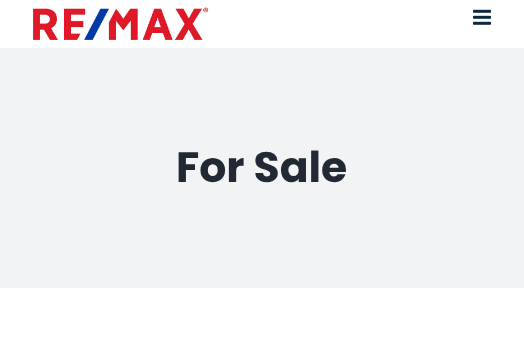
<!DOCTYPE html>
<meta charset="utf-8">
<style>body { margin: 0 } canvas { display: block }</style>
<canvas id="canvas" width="524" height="355"></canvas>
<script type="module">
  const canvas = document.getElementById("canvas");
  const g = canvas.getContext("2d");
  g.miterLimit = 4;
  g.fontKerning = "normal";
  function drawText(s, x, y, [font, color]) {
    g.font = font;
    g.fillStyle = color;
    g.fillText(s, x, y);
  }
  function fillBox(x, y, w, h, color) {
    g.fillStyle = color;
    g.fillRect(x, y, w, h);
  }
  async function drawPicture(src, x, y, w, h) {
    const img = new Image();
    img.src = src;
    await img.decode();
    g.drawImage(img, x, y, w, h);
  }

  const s1 = ["bold 42.5px Poppins", "#212934"];

  fillBox(0, 0, 524, 355, "#FFFFFF");
  await drawPicture("pic1.png", 32, 7, 178, 34);
  await drawPicture("pic2.png", 473, 9, 18, 16);
  fillBox(0, 48, 524, 240, "#F2F3F5");
  drawText("For Sale", 176, 182, s1);
</script>
